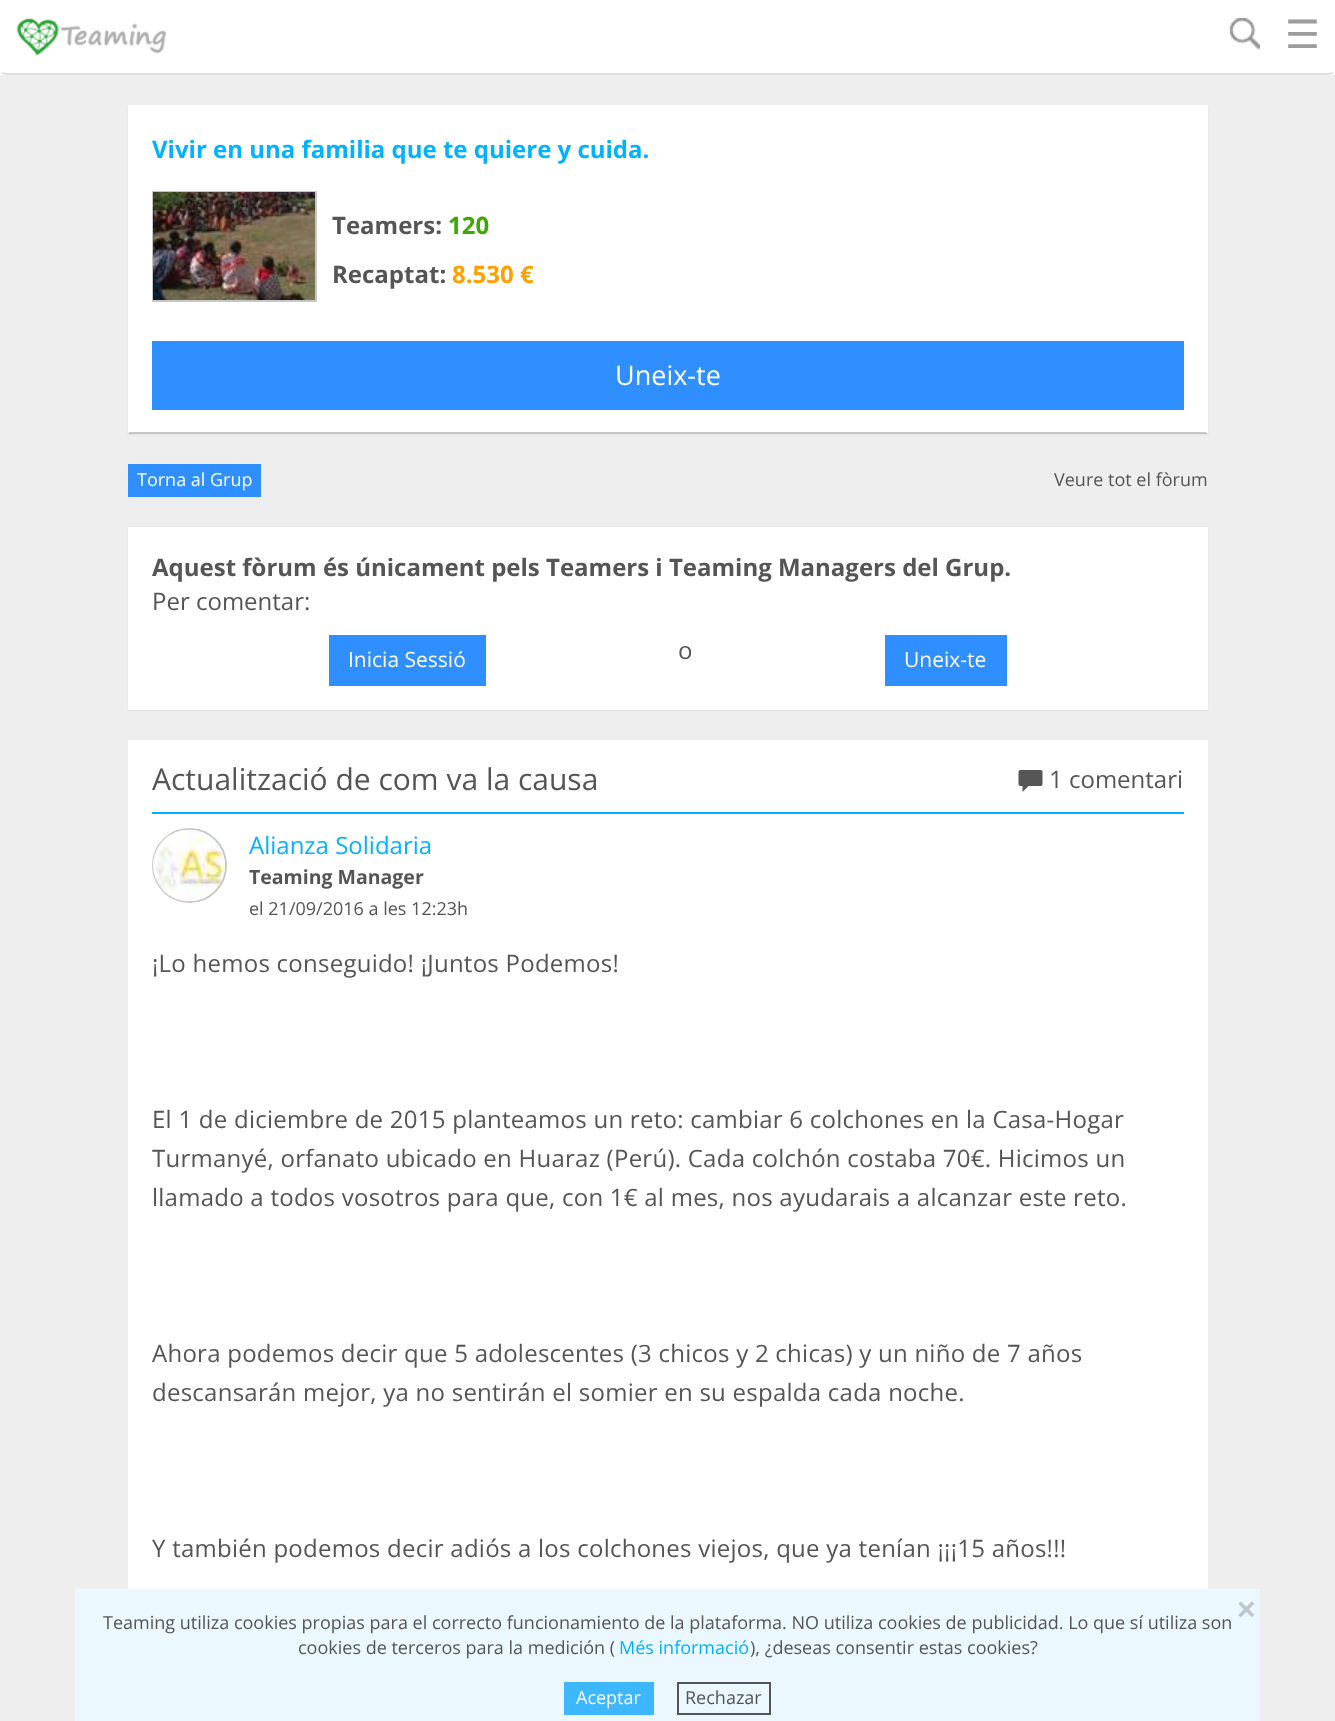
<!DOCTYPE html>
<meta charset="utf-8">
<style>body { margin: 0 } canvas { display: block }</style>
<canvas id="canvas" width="1335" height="1721"></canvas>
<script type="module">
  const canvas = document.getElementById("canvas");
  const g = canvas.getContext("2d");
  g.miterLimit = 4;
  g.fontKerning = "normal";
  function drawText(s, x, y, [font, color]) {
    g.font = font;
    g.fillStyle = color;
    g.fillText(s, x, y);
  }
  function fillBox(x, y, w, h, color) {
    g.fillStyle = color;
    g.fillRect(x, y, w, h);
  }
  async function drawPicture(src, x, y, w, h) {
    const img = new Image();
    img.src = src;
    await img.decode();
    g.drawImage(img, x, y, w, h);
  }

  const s1 = ["39px DejaVu Sans", "#9C9C9C"];
  const s2 = ["bold 24px Open Sans", "#00B2FF"];
  const s3 = ["bold 24px Open Sans", "#555555"];
  const s4 = ["bold 24px Open Sans", "#3CA803"];
  const s5 = ["bold 24px Open Sans", "#FEA100"];
  const s6 = ["27px Open Sans", "#FFFFFF"];
  const s7 = ["18px Open Sans", "#FFFFFF"];
  const s8 = ["18px Open Sans", "#555555"];
  const s9 = ["24px Open Sans", "#555555"];
  const s10 = ["21px Open Sans", "#FFFFFF"];
  const s11 = ["30px Open Sans", "#555555"];
  const s12 = ["24px Open Sans", "#00B2FF"];
  const s13 = ["bold 19.5px Open Sans", "#555555"];
  const s14 = ["bold 32px Liberation Sans", "#BDC6CC"];
  const s15 = ["18px Open Sans", "#00B2FF"];

  fillBox(0, 0, 1335, 1721, "#FFFFFF");
  g.beginPath();
  g.moveTo(1332.5, 72.5);
  g.bezierCurveTo(1331.5, 73.5, 1330.5, 74, 1329, 74);
  g.lineTo(6, 74);
  g.bezierCurveTo(4.5, 74, 3.5, 73.5, 2.5, 72.5);
  g.strokeStyle = "#D5D5D5";
  g.lineWidth = 1.5;
  g.stroke();
  await drawPicture("pic1.png", 16, 18, 151, 38);
  await drawPicture("pic2.png", 1229, 18, 31, 32);
  drawText("☰", 1285, 48, s1);
  fillBox(0, 75, 1335, 1646, "#EEEEEE");
  g.fillStyle = "rgba(0, 0, 0, 0.05)";
  g.filter = "blur(1px)";
  g.beginPath();
  g.rect(128, 107, 1080, 328);
  g.fill();
  g.filter = "none";
  fillBox(128, 105, 1080, 329, "#FFFFFF");
  g.fillStyle = "#C7C7C7";
  g.beginPath();
  g.moveTo(1208, 434);
  g.lineTo(128, 434);
  g.lineTo(129, 432);
  g.lineTo(1206, 432);
  g.closePath();
  g.fill();
  drawText("Vivir en una familia que te quiere y cuida.", 152, 158, s2);
  g.strokeStyle = "#C7C7C7";
  g.lineWidth = 2;
  g.strokeRect(153, 192, 163, 109);
  await drawPicture("pic3.png", 153, 192, 162, 108);
  drawText("Teamers:", 332, 234, s3);
  drawText("120", 448, 234, s4);
  drawText("Recaptat:", 332, 283, s3);
  drawText("8.530 €", 452, 283, s5);
  fillBox(152, 341, 1032, 69, "#2F8FFF");
  drawText("Uneix-te", 615, 385, s6);
  fillBox(128, 464, 133, 33, "#2F8FFF");
  drawText("Torna al Grup", 137, 486, s7);
  drawText("Veure tot el fòrum", 1054, 486, s8);
  g.fillStyle = "rgba(0, 0, 0, 0.05)";
  g.filter = "blur(1px)";
  g.beginPath();
  g.rect(128, 528, 1080, 183);
  g.fill();
  g.filter = "none";
  fillBox(128, 527, 1080, 183, "#FFFFFF");
  drawText("Aquest fòrum és únicament pels Teamers i Teaming Managers del Grup.", 152, 576, s3);
  drawText("Per comentar:", 152, 610, s9);
  fillBox(329, 635, 157, 51, "#2F8FFF");
  drawText("Inicia Sessió", 348, 667, s10);
  drawText("o", 678, 659, s9);
  fillBox(885, 635, 122, 51, "#2F8FFF");
  drawText("Uneix-te", 904, 667, s10);
  fillBox(128, 740, 1080, 849, "#FFFFFF");
  fillBox(152, 812, 1032, 2, "#00B2FF");
  drawText("Actualització de com va la causa", 152, 790, s11);
  await drawPicture("pic4.png", 1018, 770, 25, 22);
  drawText("1 comentari", 1049, 788, s9);
  g.beginPath();
  g.arc(189.5, 865.5, 36.5, 0, Math.PI * 2);
  g.stroke();
  await drawPicture("pic5.png", 153, 829, 72, 73);
  drawText("Alianza Solidaria", 249, 854, s12);
  drawText("Teaming Manager", 249, 884, s13);
  drawText("el 21/09/2016 a les 12:23h", 249, 915, s8);
  g.letterSpacing = "0.25px";
  drawText("¡Lo hemos conseguido! ¡Juntos Podemos!", 152, 972, s9);
  drawText("El 1 de diciembre de 2015 planteamos un reto: cambiar 6 colchones en la Casa-Hogar", 152, 1128, s9);
  drawText("Turmanyé, orfanato ubicado en Huaraz (Perú). Cada colchón costaba 70€. Hicimos un", 152, 1167, s9);
  drawText("llamado a todos vosotros para que, con 1€ al mes, nos ayudarais a alcanzar este reto.", 152, 1206, s9);
  drawText("Ahora podemos decir que 5 adolescentes (3 chicos y 2 chicas) y un niño de 7 años", 152, 1362, s9);
  drawText("descansarán mejor, ya no sentirán el somier en su espalda cada noche.", 152, 1401, s9);
  drawText("Y también podemos decir adiós a los colchones viejos, que ya tenían ¡¡¡15 años!!!", 152, 1557, s9);
  fillBox(75, 1589, 1185, 132, "#ECF8FF");
  g.letterSpacing = "0px";
  drawText("×", 1237, 1620, s14);
  drawText("Teaming utiliza cookies propias para el correcto funcionamiento de la plataforma. NO utiliza cookies de publicidad. Lo que sí utiliza son", 103, 1629, s8);
  drawText("cookies de terceros para la medición (", 298, 1654, s8);
  drawText("Més informació", 619, 1654, s15);
  drawText("), ¿deseas consentir estas cookies?", 750, 1654, s8);
  fillBox(564, 1682, 90, 33, "#3DB7FF");
  drawText("Aceptar", 576, 1704, s7);
  g.strokeStyle = "#555555";
  g.strokeRect(678, 1683, 92, 31);
  drawText("Rechazar", 685, 1704, s8);
</script>
